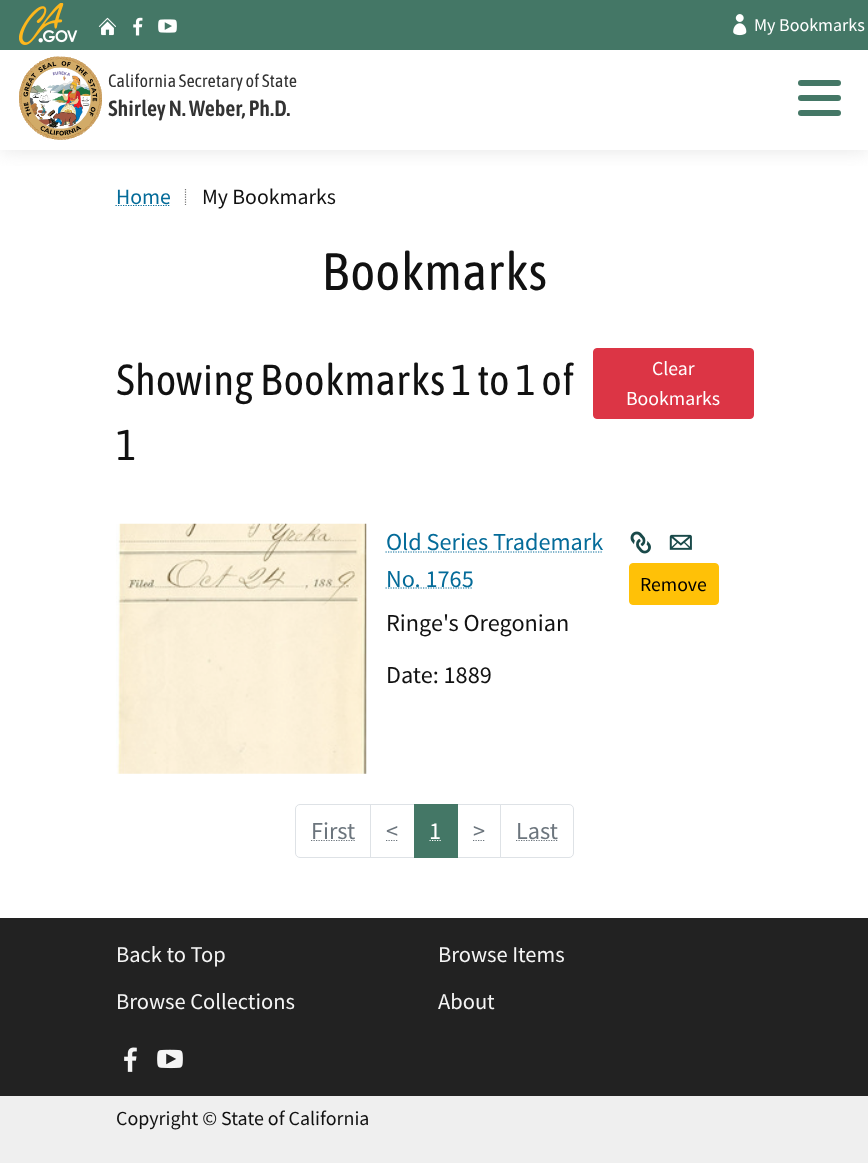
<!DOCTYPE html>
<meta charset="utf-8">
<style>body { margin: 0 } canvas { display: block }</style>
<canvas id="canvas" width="868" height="1166"></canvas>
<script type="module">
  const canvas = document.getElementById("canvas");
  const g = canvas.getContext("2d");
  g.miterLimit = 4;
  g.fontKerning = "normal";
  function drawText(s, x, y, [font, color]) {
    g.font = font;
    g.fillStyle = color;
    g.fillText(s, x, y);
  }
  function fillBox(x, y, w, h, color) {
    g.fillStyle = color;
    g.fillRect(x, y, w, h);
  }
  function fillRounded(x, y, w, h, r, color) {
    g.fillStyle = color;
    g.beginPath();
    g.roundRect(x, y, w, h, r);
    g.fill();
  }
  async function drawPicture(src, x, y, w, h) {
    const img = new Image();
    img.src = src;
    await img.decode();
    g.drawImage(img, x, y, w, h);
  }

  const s1 = ["18px Source Sans Pro", "#FFFFFF"];
  const s2 = ["18px Asap Condensed", "#333333"];
  const s3 = ["600 22px Asap Condensed", "#333333"];
  const s4 = ["21.75px Source Sans Pro", "#046B99"];
  const s5 = ["21.75px Source Sans Pro", "#111111"];
  const s6 = ["52.5px Asap Condensed", "#111111"];
  const s7 = ["43.1px Asap Condensed", "#111111"];
  const s8 = ["19.75px Source Sans Pro", "#FFFFFF"];
  const s9 = ["24.25px Source Sans Pro", "#046B99"];
  const s10 = ["19.75px Source Sans Pro", "#000000"];
  const s11 = ["24.25px Source Sans Pro", "#111111"];
  const s12 = ["24.25px Source Sans Pro", "#6C757D"];
  const s13 = ["24.25px Source Sans Pro", "#FFFFFF"];
  const s14 = ["22.5px Source Sans Pro", "#F5F5F5"];
  const s15 = ["20px Source Sans Pro", "#111111"];

  fillBox(0, 0, 868, 1166, "#FFFFFF");
  g.save();
  g.beginPath();
  g.rect(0, 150, 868, 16);
  g.clip();
  g.fillStyle = "rgba(189, 189, 189, 0.4)";
  g.filter = "blur(9.5px)";
  g.beginPath();
  g.rect(0, 0, 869, 150);
  g.fill();
  g.filter = "none";
  g.restore();
  fillBox(0, 0, 868, 50, "#447766");
  await drawPicture("pic1.png", 19, 3, 59, 42);
  await drawPicture("pic2.png", 98, 17, 18, 19);
  await drawPicture("pic3.png", 133, 17, 10, 19);
  await drawPicture("pic4.png", 158, 19, 19, 14);
  await drawPicture("pic5.png", 733, 14, 14, 22);
  drawText("My Bookmarks", 754, 31, s1);
  await drawPicture("pic6.png", 19, 56, 83, 84);
  drawText("California Secretary of State", 108, 87, s2);
  drawText("Shirley N. Weber, Ph.D.", 108, 116, s3);
  fillRounded(798, 80, 43, 6, 3, "#447766");
  fillRounded(798, 95, 43, 6, 3, "#447766");
  fillRounded(798, 110, 43, 6, 3, "#447766");
  g.beginPath();
  g.moveTo(115.5, 205.5);
  g.lineTo(170.5, 205.5);
  g.strokeStyle = "#046B99";
  g.lineWidth = 1.2;
  g.setLineDash([1.25, 1.25]);
  g.stroke();
  drawText("Home", 116, 204, s4);
  g.beginPath();
  g.moveTo(185.5, 189);
  g.lineTo(185.5, 205);
  g.strokeStyle = "#777777";
  g.stroke();
  drawText("My Bookmarks", 202, 204, s5);
  drawText("Bookmarks", 322, 290, s6);
  drawText("Showing Bookmarks 1 to 1 of", 116, 395, s7);
  drawText("1", 116, 460, s7);
  g.fillStyle = "#DC3545";
  g.beginPath();
  g.roundRect(593.5, 348.5, 160, 70, 3.5);
  g.fill();
  g.strokeStyle = "#DC3545";
  g.lineWidth = 1;
  g.setLineDash([]);
  g.stroke();
  drawText("Clear", 652, 375, s8);
  drawText("Bookmarks", 626, 405, s8);
  await drawPicture("pic7.png", 116, 523, 251, 251);
  drawText("Old Series Trademark", 386, 550, s9);
  g.beginPath();
  g.moveTo(385.5, 552);
  g.lineTo(602.5, 552);
  g.strokeStyle = "#046B99";
  g.lineWidth = 1.2;
  g.setLineDash([1.25, 1.25]);
  g.stroke();
  g.beginPath();
  g.moveTo(385.5, 588);
  g.lineTo(473, 588);
  g.stroke();
  drawText("No. 1765", 386, 587, s9);
  await drawPicture("pic8.png", 630, 531, 21, 23);
  await drawPicture("pic9.png", 669, 534, 23, 16);
  g.fillStyle = "#FFC107";
  g.beginPath();
  g.roundRect(629.5, 563.5, 89, 41, 3.5);
  g.fill();
  g.strokeStyle = "#FFC107";
  g.lineWidth = 1;
  g.setLineDash([]);
  g.stroke();
  drawText("Remove", 640, 591, s10);
  drawText("Ringe's Oregonian", 386, 631, s11);
  drawText("Date: 1889", 386, 683, s11);
  g.beginPath();
  g.roundRect(295.5, 804.5, 75, 53, [4.5, 0, 0, 4.5]);
  g.strokeStyle = "#DEE2E6";
  g.stroke();
  g.beginPath();
  g.moveTo(311, 840.5);
  g.lineTo(355, 840.5);
  g.strokeStyle = "#6C757D";
  g.lineWidth = 1.2;
  g.setLineDash([1.25, 1.25]);
  g.stroke();
  drawText("First", 311, 839, s12);
  g.strokeStyle = "#DEE2E6";
  g.lineWidth = 1;
  g.setLineDash([]);
  g.strokeRect(370.5, 804.5, 44, 53);
  drawText("<", 386, 839, s12);
  g.beginPath();
  g.moveTo(386, 840.5);
  g.lineTo(398, 840.5);
  g.strokeStyle = "#6C757D";
  g.lineWidth = 1.2;
  g.setLineDash([1.25, 1.25]);
  g.stroke();
  g.strokeStyle = "#DEE2E6";
  g.lineWidth = 1;
  g.setLineDash([]);
  g.strokeRect(456.5, 804.5, 44, 53);
  fillBox(414, 804, 44, 54, "#447766");
  drawText("1", 429, 839, s13);
  g.beginPath();
  g.moveTo(429.5, 840.5);
  g.lineTo(441.5, 840.5);
  g.strokeStyle = "#FFFFFF";
  g.lineWidth = 1.2;
  g.setLineDash([1.25, 1.25]);
  g.stroke();
  drawText(">", 473, 839, s12);
  g.beginPath();
  g.moveTo(473, 840.5);
  g.lineTo(485, 840.5);
  g.strokeStyle = "#6C757D";
  g.stroke();
  g.fillStyle = "#FFFFFF";
  g.beginPath();
  g.roundRect(500.5, 804.5, 73, 53, [0, 4.5, 4.5, 0]);
  g.fill();
  g.strokeStyle = "#DEE2E6";
  g.lineWidth = 1;
  g.setLineDash([]);
  g.stroke();
  g.beginPath();
  g.moveTo(516, 840.5);
  g.lineTo(558, 840.5);
  g.strokeStyle = "#6C757D";
  g.lineWidth = 1.2;
  g.setLineDash([1.25, 1.25]);
  g.stroke();
  drawText("Last", 516, 839, s12);
  fillBox(0, 918, 868, 178, "#222222");
  drawText("Back to Top", 116, 962, s14);
  drawText("Browse Items", 438, 962, s14);
  drawText("Browse Collections", 116, 1009, s14);
  drawText("About", 438, 1009, s14);
  await drawPicture("pic10.png", 124, 1047, 13, 25);
  await drawPicture("pic11.png", 157, 1049, 26, 20);
  fillBox(0, 1096, 868, 67, "#EFEFEF");
  drawText("Copyright © State of California", 116, 1125, s15);
</script>
